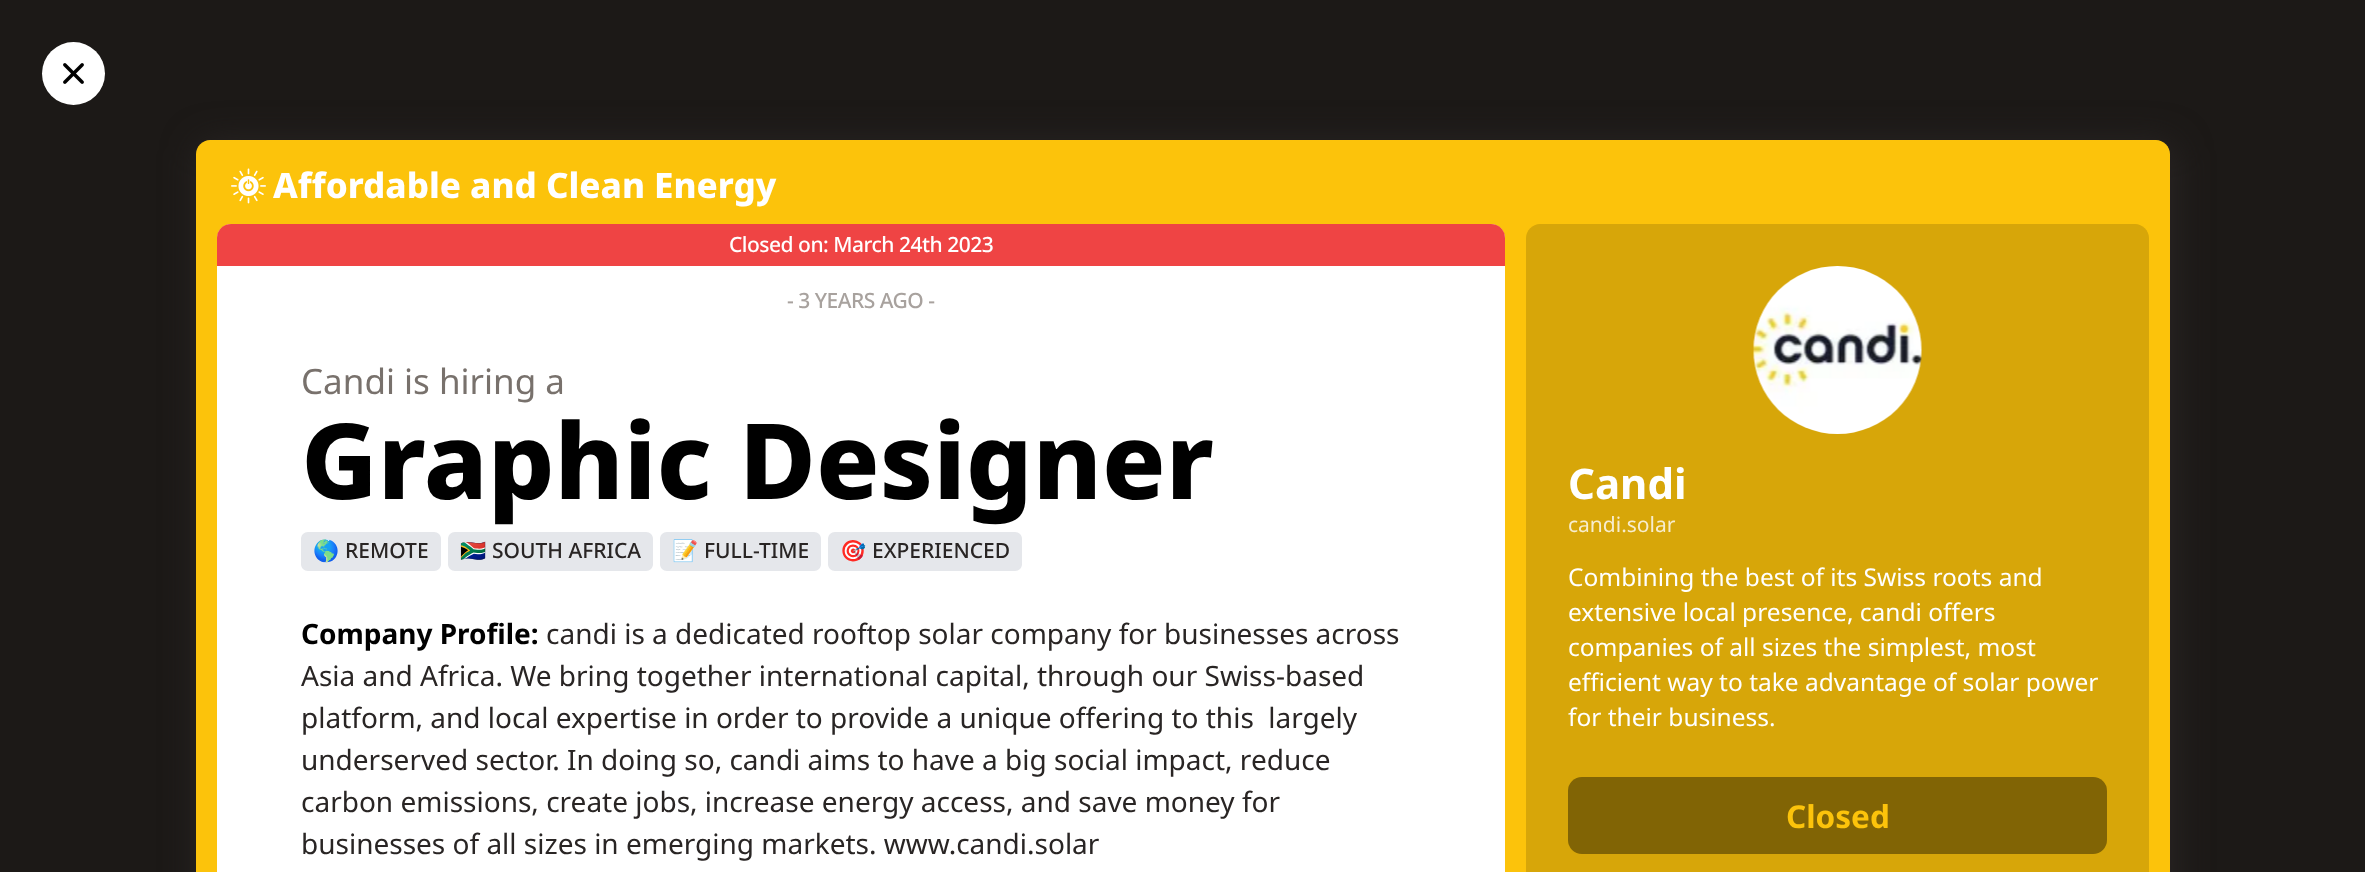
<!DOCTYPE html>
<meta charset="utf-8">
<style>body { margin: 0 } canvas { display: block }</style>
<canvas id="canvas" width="2365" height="872"></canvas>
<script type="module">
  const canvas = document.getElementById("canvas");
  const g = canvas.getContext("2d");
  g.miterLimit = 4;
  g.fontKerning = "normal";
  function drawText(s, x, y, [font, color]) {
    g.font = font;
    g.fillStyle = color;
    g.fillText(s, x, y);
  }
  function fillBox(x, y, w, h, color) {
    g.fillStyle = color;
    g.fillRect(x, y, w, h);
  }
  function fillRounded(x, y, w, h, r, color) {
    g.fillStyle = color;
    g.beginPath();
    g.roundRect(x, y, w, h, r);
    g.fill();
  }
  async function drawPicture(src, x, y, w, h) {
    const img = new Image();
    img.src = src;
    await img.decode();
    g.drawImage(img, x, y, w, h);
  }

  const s1 = ["800 35px Noto Sans", "#FFFFFF"];
  const s2 = ["500 21px Noto Sans", "#FFFFFF"];
  const s3 = ["500 21px Noto Sans", "#A8A29E"];
  const s4 = ["35px Noto Sans", "#78716C"];
  const s5 = ["800 105px Noto Sans", "#000000"];
  const s6 = ["21px Noto Color Emoji", "#292524"];
  const s7 = ["500 21px Noto Sans", "#292524"];
  const s8 = ["bold 28px Noto Sans", "#000000"];
  const s9 = ["28px Noto Sans", "#292524"];
  const s10 = ["bold 42px Noto Sans", "#FFFFFF"];
  const s11 = ["21px Noto Sans", "#F7EDCE"];
  const s12 = ["24.5px Noto Sans", "#FFFFFF"];
  const s13 = ["bold 31.5px Noto Sans", "#FCC30B"];

  fillBox(0, 0, 2365, 872, "#1C1917");
  g.fillStyle = "#FFFFFF";
  g.beginPath();
  g.arc(73.5, 73.5, 31.5, 0, Math.PI * 2);
  g.fill();
  await drawPicture("pic1.png", 63, 63, 21, 21);
  g.fillStyle = "#292524";
  g.filter = "blur(17.5px)";
  g.beginPath();
  g.roundRect(198, 142, 1977, 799, 16);
  g.fill();
  g.filter = "none";
  g.fillStyle = "#FCC30B";
  g.beginPath();
  g.moveTo(210, 140);
  g.lineTo(2156, 140);
  g.bezierCurveTo(2163.5, 140, 2170, 146.5, 2170, 154);
  g.lineTo(2170, 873);
  g.lineTo(196, 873);
  g.lineTo(196, 154);
  g.bezierCurveTo(196, 146.5, 202.5, 140, 210, 140);
  g.closePath();
  g.fill();
  await drawPicture("pic2.png", 231, 168, 35, 36);
  drawText("Affordable and Clean Energy", 273, 198, s1);
  g.beginPath();
  g.moveTo(231, 224);
  g.lineTo(1491, 224);
  g.bezierCurveTo(1498.5, 224, 1505, 230.5, 1505, 238);
  g.lineTo(1505, 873);
  g.lineTo(217, 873);
  g.lineTo(217, 238);
  g.bezierCurveTo(217, 230.5, 223.5, 224, 231, 224);
  g.closePath();
  g.fill();
  g.fillStyle = "#EF4444";
  g.beginPath();
  g.roundRect(217, 224, 1288, 42, [14, 14, 0, 0]);
  g.fill();
  g.letterSpacing = "-0.5px";
  drawText("Closed on: March 24th 2023", 729, 252, s2);
  drawText("- 3 YEARS AGO -", 787, 308, s3);
  g.letterSpacing = "0px";
  drawText("Candi is hiring a", 301, 394, s4);
  drawText("Graphic Designer", 301, 499, s5);
  g.fillStyle = "#E5E7EB";
  g.beginPath();
  g.moveTo(308, 532);
  g.lineTo(434, 532);
  g.bezierCurveTo(438, 532, 441, 535, 441, 539);
  g.lineTo(441, 564);
  g.bezierCurveTo(441, 568, 438, 571, 434, 571);
  g.lineTo(308, 571);
  g.bezierCurveTo(304, 571, 301, 568, 301, 564);
  g.lineTo(301, 539);
  g.bezierCurveTo(301, 535, 304, 532, 308, 532);
  g.closePath();
  g.fill();
  drawText("🌎", 313, 558, s6);
  drawText("REMOTE", 345, 558, s7);
  g.fillStyle = "#E5E7EB";
  g.beginPath();
  g.moveTo(455, 532);
  g.lineTo(646, 532);
  g.bezierCurveTo(650, 532, 653, 535, 653, 539);
  g.lineTo(653, 564);
  g.bezierCurveTo(653, 568, 650, 571, 646, 571);
  g.lineTo(455, 571);
  g.bezierCurveTo(451, 571, 448, 568, 448, 564);
  g.lineTo(448, 539);
  g.bezierCurveTo(448, 535, 451, 532, 455, 532);
  g.closePath();
  g.fill();
  drawText("🇿🇦", 460, 558, s6);
  drawText("SOUTH AFRICA", 492, 558, s7);
  g.fillStyle = "#E5E7EB";
  g.beginPath();
  g.moveTo(667, 532);
  g.lineTo(814, 532);
  g.bezierCurveTo(818, 532, 821, 535, 821, 539);
  g.lineTo(821, 564);
  g.bezierCurveTo(821, 568, 818, 571, 814, 571);
  g.lineTo(667, 571);
  g.bezierCurveTo(663, 571, 660, 568, 660, 564);
  g.lineTo(660, 539);
  g.bezierCurveTo(660, 535, 663, 532, 667, 532);
  g.closePath();
  g.fill();
  drawText("📝", 672, 558, s6);
  drawText("FULL-TIME", 704, 558, s7);
  g.fillStyle = "#E5E7EB";
  g.beginPath();
  g.moveTo(835, 532);
  g.lineTo(1015, 532);
  g.bezierCurveTo(1019, 532, 1022, 535, 1022, 539);
  g.lineTo(1022, 564);
  g.bezierCurveTo(1022, 568, 1019, 571, 1015, 571);
  g.lineTo(835, 571);
  g.bezierCurveTo(831, 571, 828, 568, 828, 564);
  g.lineTo(828, 539);
  g.bezierCurveTo(828, 535, 831, 532, 835, 532);
  g.closePath();
  g.fill();
  drawText("🎯", 840, 558, s6);
  drawText("EXPERIENCED", 872, 558, s7);
  drawText("Company Profile:", 301, 644, s8);
  drawText("candi is a dedicated rooftop solar company for businesses across", 546, 644, s9);
  drawText("Asia and Africa. We bring together international capital, through our Swiss-based", 301, 686, s9);
  drawText("platform, and local expertise in order to provide a unique offering to this  largely", 301, 728, s9);
  drawText("underserved sector. In doing so, candi aims to have a big social impact, reduce", 301, 770, s9);
  drawText("carbon emissions, create jobs, increase energy access, and save money for", 301, 812, s9);
  drawText("businesses of all sizes in emerging markets. www.candi.solar", 301, 854, s9);
  g.fillStyle = "#D7A609";
  g.beginPath();
  g.moveTo(1540, 224);
  g.lineTo(2135, 224);
  g.bezierCurveTo(2142.5, 224, 2149, 230.5, 2149, 238);
  g.lineTo(2149, 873);
  g.lineTo(1526, 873);
  g.lineTo(1526, 238);
  g.bezierCurveTo(1526, 230.5, 1532.5, 224, 1540, 224);
  g.closePath();
  g.fill();
  await drawPicture("pic3.png", 1753, 266, 169, 168);
  drawText("Candi", 1568, 499, s10);
  drawText("candi.solar", 1568, 532, s11);
  drawText("Combining the best of its Swiss roots and", 1568, 586, s12);
  drawText("extensive local presence, candi offers", 1568, 621, s12);
  drawText("companies of all sizes the simplest, most", 1568, 656, s12);
  drawText("efficient way to take advantage of solar power", 1568, 691, s12);
  drawText("for their business.", 1568, 726, s12);
  fillRounded(1568, 777, 539, 77, 14, "#816405");
  drawText("Closed", 1786, 828, s13);
</script>
